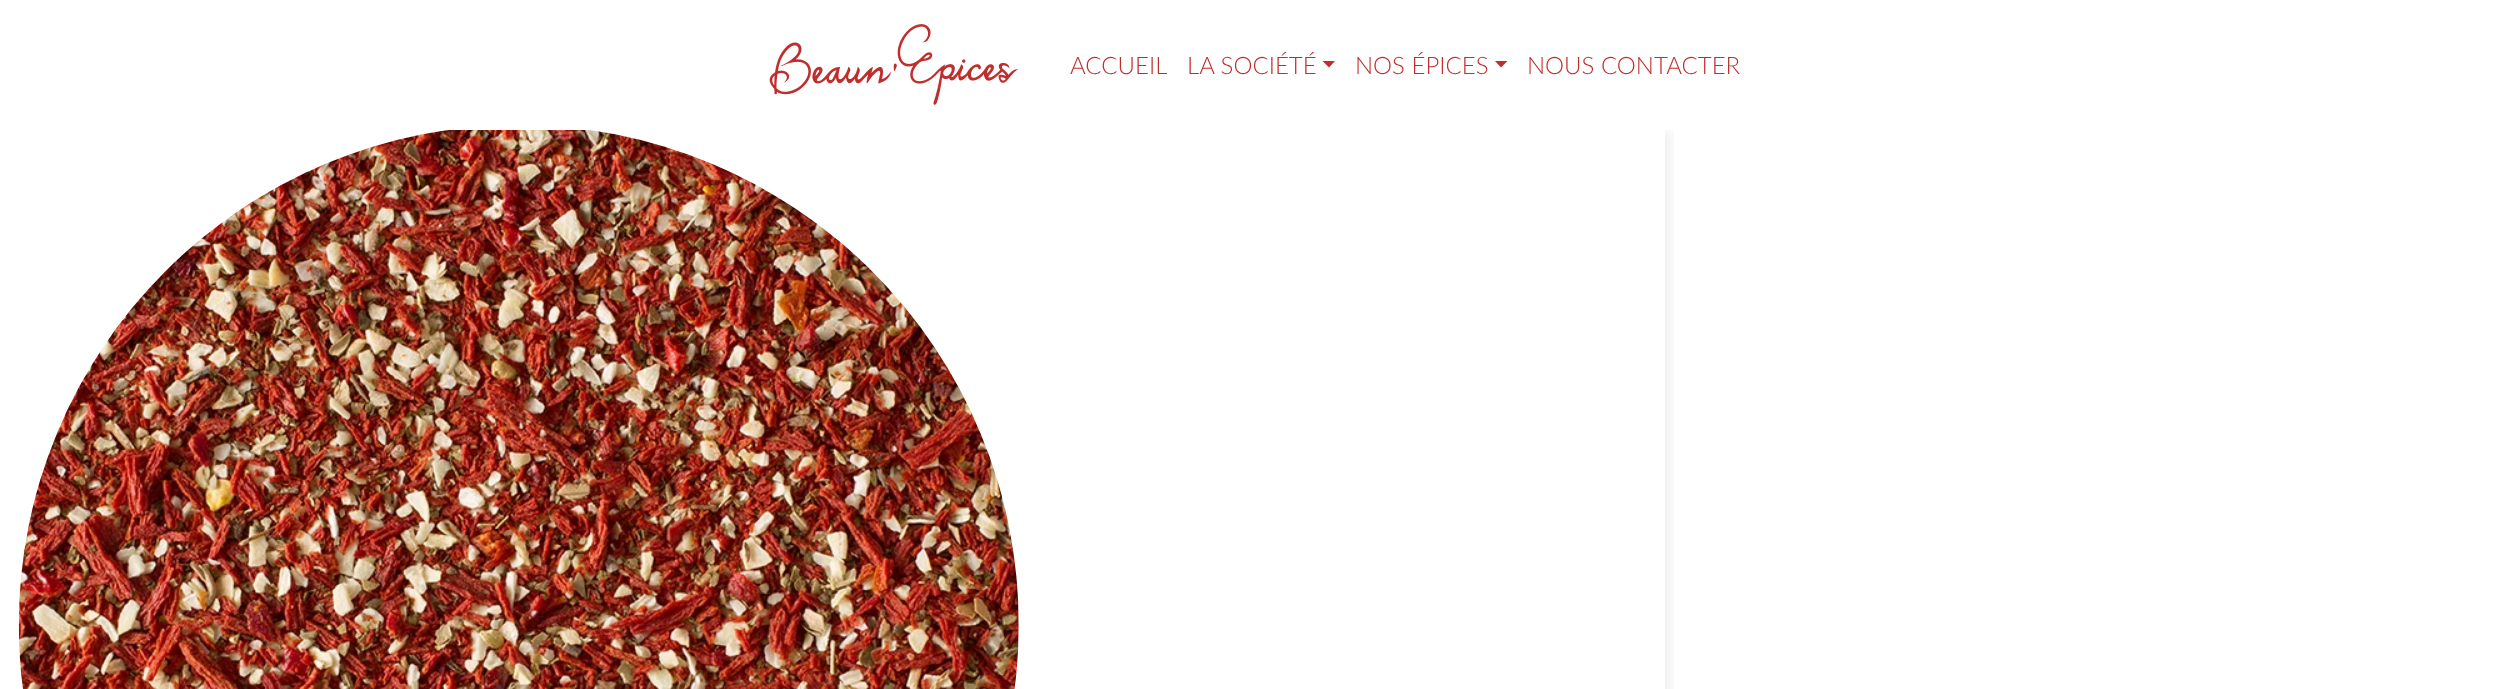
<!DOCTYPE html>
<meta charset="utf-8">
<style>body { margin: 0 } canvas { display: block }</style>
<canvas id="canvas" width="2497" height="689"></canvas>
<script type="module">
  const canvas = document.getElementById("canvas");
  const g = canvas.getContext("2d");
  g.miterLimit = 4;
  g.fontKerning = "normal";
  function drawText(s, x, y, [font, color]) {
    g.font = font;
    g.fillStyle = color;
    g.fillText(s, x, y);
  }
  function fillBox(x, y, w, h, color) {
    g.fillStyle = color;
    g.fillRect(x, y, w, h);
  }
  async function drawPicture(src, x, y, w, h) {
    const img = new Image();
    img.src = src;
    await img.decode();
    g.drawImage(img, x, y, w, h);
  }

  const s1 = ["300 24px Lato", "#BF2D2C"];

  fillBox(0, 0, 2497, 689, "#FFFFFF");
  g.save();
  g.beginPath();
  g.rect(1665, 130, 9, 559);
  g.clip();
  g.fillStyle = "rgba(0, 0, 0, 0.1)";
  g.filter = "blur(9.5px)";
  g.beginPath();
  g.rect(1, 126, 1665, 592);
  g.fill();
  g.filter = "none";
  g.restore();
  fillBox(0, 114, 1676, 16, "#FFFFFF");
  await drawPicture("pic1.png", 769, 24, 249, 81);
  drawText("ACCUEIL", 1070, 74, s1);
  drawText("LA SOCIÉTÉ", 1187, 74, s1);
  g.beginPath();
  g.moveTo(1322.5, 61);
  g.lineTo(1335, 61);
  g.lineTo(1329, 67.5);
  g.closePath();
  g.fill();
  drawText("NOS ÉPICES", 1355, 74, s1);
  g.beginPath();
  g.moveTo(1495, 61);
  g.lineTo(1507.5, 61);
  g.lineTo(1501, 67.5);
  g.closePath();
  g.fill();
  drawText("NOUS CONTACTER", 1527, 74, s1);
  await drawPicture("pic2.png", 18, 130, 1001, 559);
</script>
